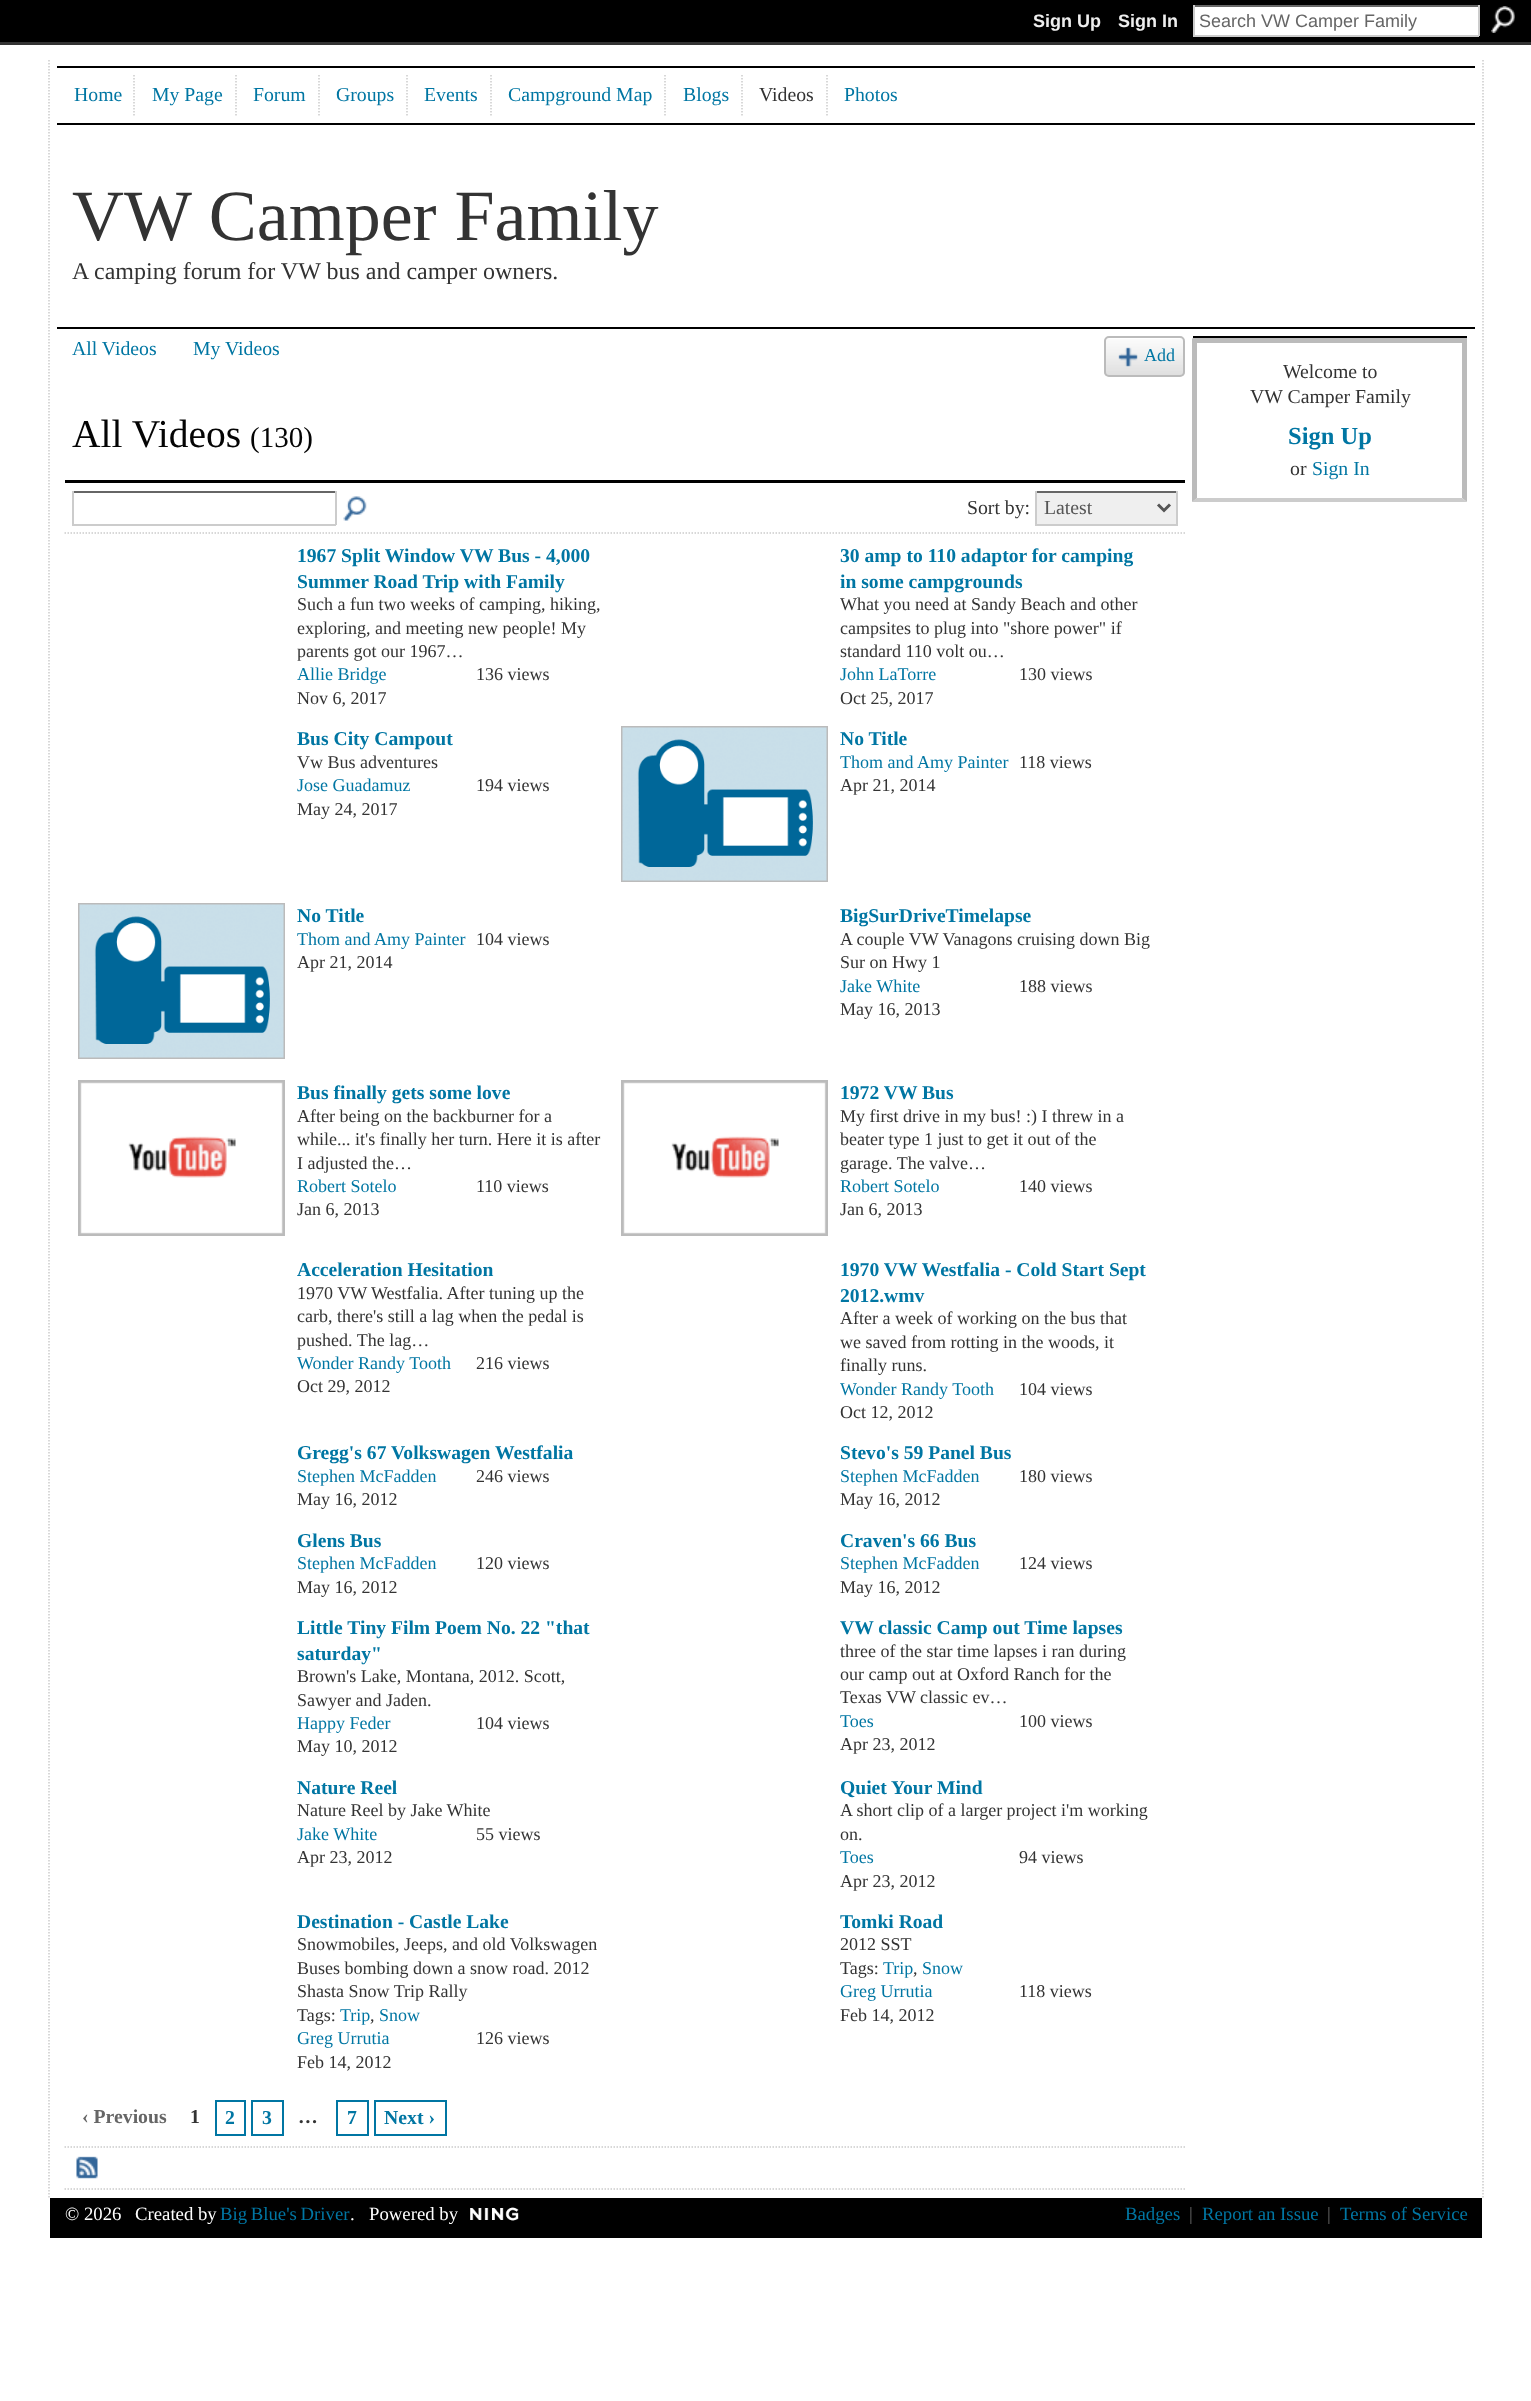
<!DOCTYPE html>
<meta charset="utf-8">
<style>body { margin: 0 } canvas { display: block }</style>
<canvas id="canvas" width="1531" height="2401"></canvas>
<script type="module">
  const canvas = document.getElementById("canvas");
  const g = canvas.getContext("2d");
  g.miterLimit = 4;
  g.fontKerning = "normal";
  function drawText(s, x, y, [font, color]) {
    g.font = font;
    g.fillStyle = color;
    g.fillText(s, x, y);
  }
  function fillBox(x, y, w, h, color) {
    g.fillStyle = color;
    g.fillRect(x, y, w, h);
  }
  async function drawPicture(src, x, y, w, h) {
    const img = new Image();
    img.src = src;
    await img.decode();
    g.drawImage(img, x, y, w, h);
  }

  const s1 = ["bold 18px Liberation Sans", "#EEEEEE"];
  const s2 = ["18px Liberation Sans", "#666666"];
  const s3 = ["19.75px Liberation Serif", "#0076A3"];
  const s4 = ["19.75px Liberation Serif", "#333333"];
  const s5 = ["72px Liberation Serif", "#333333"];
  const s6 = ["24px Liberation Serif", "#333333"];
  const s7 = ["18px Liberation Serif", "#0076A3"];
  const s8 = ["39.5px Liberation Serif", "#040404"];
  const s9 = ["29px Liberation Serif", "#040404"];
  const s10 = ["19.75px Liberation Serif", "#555555"];
  const s11 = ["bold 19.6px Liberation Serif", "#0076A3"];
  const s12 = ["18px Liberation Serif", "#333333"];
  const s13 = ["bold 19.75px Liberation Serif", "#666666"];
  const s14 = ["bold 19.75px Liberation Serif", "#333333"];
  const s15 = ["bold 19.75px Liberation Serif", "#0076A3"];
  const s16 = ["bold 24.5px Liberation Serif", "#0076A3"];
  const s17 = ["18.75px Liberation Serif", "#FFFFFF"];
  const s18 = ["18.75px Liberation Serif", "#0076A3"];
  const s19 = ["18.75px Liberation Serif", "#666666"];

  fillBox(0, 0, 1531, 2401, "#FFFFFF");
  fillBox(0, 0, 1531, 42, "#000000");
  fillBox(0, 42, 1531, 3, "#333333");
  drawText("Sign Up", 1033, 27, s1);
  drawText("Sign In", 1118, 27, s1);
  fillBox(1195, 7, 283, 28, "#FFFFFF");
  fillBox(1193, 5, 286, 2, "#666666");
  fillBox(1478, 5, 2, 31, "#CCCCCC");
  fillBox(1193, 35, 286, 2, "#CCCCCC");
  fillBox(1193, 5, 2, 31, "#CCCCCC");
  drawText("Search VW Camper Family", 1199, 27, s2);
  await drawPicture("pic1.png", 1491, 6, 24, 27);
  g.beginPath();
  g.moveTo(1483, 60);
  g.lineTo(1483, 2197.5);
  g.strokeStyle = "#CCCCCC";
  g.lineWidth = 1.5;
  g.setLineDash([1.5, 1.5]);
  g.stroke();
  g.beginPath();
  g.moveTo(49, 60);
  g.lineTo(49, 2197.5);
  g.stroke();
  fillBox(57, 66, 1418, 2, "#000000");
  fillBox(57, 123, 1418, 2, "#000000");
  g.beginPath();
  g.moveTo(134, 75);
  g.lineTo(134, 115.5);
  g.stroke();
  drawText("Home", 74, 101, s3);
  g.beginPath();
  g.moveTo(236, 75);
  g.lineTo(236, 115.5);
  g.stroke();
  drawText("My Page", 152, 101, s3);
  g.beginPath();
  g.moveTo(319, 75);
  g.lineTo(319, 115.5);
  g.stroke();
  drawText("Forum", 253, 101, s3);
  g.beginPath();
  g.moveTo(407, 75);
  g.lineTo(407, 115.5);
  g.stroke();
  drawText("Groups", 336, 101, s3);
  g.beginPath();
  g.moveTo(491, 75);
  g.lineTo(491, 115.5);
  g.stroke();
  drawText("Events", 424, 101, s3);
  g.beginPath();
  g.moveTo(665, 75);
  g.lineTo(665, 115.5);
  g.stroke();
  drawText("Campground Map", 508, 101, s3);
  g.beginPath();
  g.moveTo(742, 75);
  g.lineTo(742, 115.5);
  g.stroke();
  drawText("Blogs", 683, 101, s3);
  g.beginPath();
  g.moveTo(827, 75);
  g.lineTo(827, 115.5);
  g.stroke();
  drawText("Videos", 759, 101, s4);
  drawText("Photos", 844, 101, s3);
  drawText("VW Camper Family", 72, 240, s5);
  drawText("A camping forum for VW bus and camper owners.", 72, 279, s6);
  fillBox(57, 327, 1418, 2, "#000000");
  drawText("All Videos", 72, 355, s3);
  drawText("My Videos", 193, 355, s3);
  await drawPicture("pic2.png", 1104, 339, 81, 38);
  g.beginPath();
  g.roundRect(1105, 337, 79, 39, 4);
  g.strokeStyle = "#BBBBBB";
  g.lineWidth = 2;
  g.setLineDash([]);
  g.stroke();
  await drawPicture("pic3.png", 1118, 347, 20, 20);
  drawText("Add", 1144, 361, s7);
  drawText("All Videos", 72, 447, s8);
  drawText("(130)", 250, 447, s9);
  fillBox(65, 480, 1120, 3, "#000000");
  g.beginPath();
  g.moveTo(64.5, 533);
  g.lineTo(1185, 533);
  g.strokeStyle = "#CCCCCC";
  g.lineWidth = 1.5;
  g.setLineDash([1.5, 1.5]);
  g.stroke();
  fillBox(72, 491, 264, 2, "#666666");
  fillBox(335, 491, 2, 34, "#CCCCCC");
  fillBox(72, 524, 264, 2, "#CCCCCC");
  fillBox(72, 491, 2, 34, "#CCCCCC");
  await drawPicture("pic4.png", 343, 496, 24, 25);
  drawText("Sort by:", 967, 514, s4);
  fillBox(1037, 493, 139, 31, "#EFEFEF");
  fillBox(1035, 491, 143, 2, "#666666");
  fillBox(1176, 491, 2, 34, "#CCCCCC");
  fillBox(1035, 524, 143, 2, "#CCCCCC");
  fillBox(1035, 491, 2, 34, "#CCCCCC");
  g.beginPath();
  g.moveTo(1158, 504.5);
  g.lineTo(1164, 510.5);
  g.lineTo(1170, 504.5);
  g.strokeStyle = "#555555";
  g.lineWidth = 3;
  g.setLineDash([]);
  g.stroke();
  drawText("Latest", 1044, 514, s10);
  g.beginPath();
  g.moveTo(64.5, 2147);
  g.lineTo(1185, 2147);
  g.strokeStyle = "#CCCCCC";
  g.lineWidth = 1.5;
  g.setLineDash([1.5, 1.5]);
  g.stroke();
  drawText("1967 Split Window VW Bus - 4,000", 297, 562, s11);
  drawText("Summer Road Trip with Family", 297, 588, s11);
  drawText("Such a fun two weeks of camping, hiking,", 297, 610, s12);
  drawText("exploring, and meeting new people! My", 297, 634, s12);
  drawText("parents got our 1967…", 297, 657, s12);
  drawText("Allie Bridge", 297, 680, s7);
  drawText("Nov 6, 2017", 297, 704, s12);
  drawText("136 views", 476, 680, s12);
  drawText("30 amp to 110 adaptor for camping", 840, 562, s11);
  drawText("in some campgrounds", 840, 588, s11);
  drawText("What you need at Sandy Beach and other", 840, 610, s12);
  drawText("campsites to plug into \"shore power\" if", 840, 634, s12);
  drawText("standard 110 volt ou…", 840, 657, s12);
  drawText("John LaTorre", 840, 680, s7);
  drawText("Oct 25, 2017", 840, 704, s12);
  drawText("130 views", 1019, 680, s12);
  drawText("Bus City Campout", 297, 745, s11);
  drawText("Vw Bus adventures", 297, 768, s12);
  drawText("Jose Guadamuz", 297, 791, s7);
  drawText("May 24, 2017", 297, 815, s12);
  drawText("194 views", 476, 791, s12);
  g.strokeStyle = "#BBBBBB";
  g.lineWidth = 2;
  g.setLineDash([]);
  g.strokeRect(622, 727, 205, 154);
  await drawPicture("pic5.png", 622, 727, 205, 154);
  drawText("No Title", 840, 745, s11);
  drawText("Thom and Amy Painter", 840, 768, s7);
  drawText("Apr 21, 2014", 840, 791, s12);
  drawText("118 views", 1019, 768, s12);
  g.strokeRect(79, 904, 205, 154);
  await drawPicture("pic6.png", 79, 904, 205, 154);
  drawText("No Title", 297, 922, s11);
  drawText("Thom and Amy Painter", 297, 945, s7);
  drawText("Apr 21, 2014", 297, 968, s12);
  drawText("104 views", 476, 945, s12);
  drawText("BigSurDriveTimelapse", 840, 922, s11);
  drawText("A couple VW Vanagons cruising down Big", 840, 945, s12);
  drawText("Sur on Hwy 1", 840, 968, s12);
  drawText("Jake White", 840, 992, s7);
  drawText("May 16, 2013", 840, 1015, s12);
  drawText("188 views", 1019, 992, s12);
  g.strokeRect(79, 1081, 205, 154);
  await drawPicture("pic7.png", 80, 1082, 203, 152);
  drawText("Bus finally gets some love", 297, 1099, s11);
  drawText("After being on the backburner for a", 297, 1122, s12);
  drawText("while... it's finally her turn. Here it is after", 297, 1145, s12);
  drawText("I adjusted the…", 297, 1169, s12);
  drawText("Robert Sotelo", 297, 1192, s7);
  drawText("Jan 6, 2013", 297, 1215, s12);
  drawText("110 views", 476, 1192, s12);
  g.strokeRect(622, 1081, 205, 154);
  await drawPicture("pic8.png", 623, 1082, 203, 152);
  drawText("1972 VW Bus", 840, 1099, s11);
  drawText("My first drive in my bus! :) I threw in a", 840, 1122, s12);
  drawText("beater type 1 just to get it out of the", 840, 1145, s12);
  drawText("garage. The valve…", 840, 1169, s12);
  drawText("Robert Sotelo", 840, 1192, s7);
  drawText("Jan 6, 2013", 840, 1215, s12);
  drawText("140 views", 1019, 1192, s12);
  drawText("Acceleration Hesitation", 297, 1276, s11);
  drawText("1970 VW Westfalia. After tuning up the", 297, 1299, s12);
  drawText("carb, there's still a lag when the pedal is", 297, 1322, s12);
  drawText("pushed. The lag…", 297, 1346, s12);
  drawText("Wonder Randy Tooth", 297, 1369, s7);
  drawText("Oct 29, 2012", 297, 1392, s12);
  drawText("216 views", 476, 1369, s12);
  drawText("1970 VW Westfalia - Cold Start Sept", 840, 1276, s11);
  drawText("2012.wmv", 840, 1302, s11);
  drawText("After a week of working on the bus that", 840, 1324, s12);
  drawText("we saved from rotting in the woods, it", 840, 1348, s12);
  drawText("finally runs.", 840, 1371, s12);
  drawText("Wonder Randy Tooth", 840, 1395, s7);
  drawText("Oct 12, 2012", 840, 1418, s12);
  drawText("104 views", 1019, 1395, s12);
  drawText("Gregg's 67 Volkswagen Westfalia", 297, 1459, s11);
  drawText("Stephen McFadden", 297, 1482, s7);
  drawText("May 16, 2012", 297, 1505, s12);
  drawText("246 views", 476, 1482, s12);
  drawText("Stevo's 59 Panel Bus", 840, 1459, s11);
  drawText("Stephen McFadden", 840, 1482, s7);
  drawText("May 16, 2012", 840, 1505, s12);
  drawText("180 views", 1019, 1482, s12);
  drawText("Glens Bus", 297, 1547, s11);
  drawText("Stephen McFadden", 297, 1569, s7);
  drawText("May 16, 2012", 297, 1593, s12);
  drawText("120 views", 476, 1569, s12);
  drawText("Craven's 66 Bus", 840, 1547, s11);
  drawText("Stephen McFadden", 840, 1569, s7);
  drawText("May 16, 2012", 840, 1593, s12);
  drawText("124 views", 1019, 1569, s12);
  drawText("Little Tiny Film Poem No. 22 \"that", 297, 1634, s11);
  drawText("saturday\"", 297, 1660, s11);
  drawText("Brown's Lake, Montana, 2012. Scott,", 297, 1682, s12);
  drawText("Sawyer and Jaden.", 297, 1706, s12);
  drawText("Happy Feder", 297, 1729, s7);
  drawText("May 10, 2012", 297, 1752, s12);
  drawText("104 views", 476, 1729, s12);
  drawText("VW classic Camp out Time lapses", 840, 1634, s11);
  drawText("three of the star time lapses i ran during", 840, 1657, s12);
  drawText("our camp out at Oxford Ranch for the", 840, 1680, s12);
  drawText("Texas VW classic ev…", 840, 1703, s12);
  drawText("Toes", 840, 1727, s7);
  drawText("Apr 23, 2012", 840, 1750, s12);
  drawText("100 views", 1019, 1727, s12);
  drawText("Nature Reel", 297, 1794, s11);
  drawText("Nature Reel by Jake White", 297, 1816, s12);
  drawText("Jake White", 297, 1840, s7);
  drawText("Apr 23, 2012", 297, 1863, s12);
  drawText("55 views", 476, 1840, s12);
  drawText("Quiet Your Mind", 840, 1794, s11);
  drawText("A short clip of a larger project i'm working", 840, 1816, s12);
  drawText("on.", 840, 1840, s12);
  drawText("Toes", 840, 1863, s7);
  drawText("Apr 23, 2012", 840, 1887, s12);
  drawText("94 views", 1019, 1863, s12);
  drawText("Destination - Castle Lake", 297, 1928, s11);
  drawText("Snowmobiles, Jeeps, and old Volkswagen", 297, 1950, s12);
  drawText("Buses bombing down a snow road. 2012", 297, 1974, s12);
  drawText("Shasta Snow Trip Rally", 297, 1997, s12);
  drawText("Tags:", 297, 2021, s12);
  drawText("Trip", 340, 2021, s7);
  drawText(",", 370, 2021, s12);
  drawText("Snow", 379, 2021, s7);
  drawText("Greg Urrutia", 297, 2044, s7);
  drawText("Feb 14, 2012", 297, 2068, s12);
  drawText("126 views", 476, 2044, s12);
  drawText("Tomki Road", 840, 1928, s11);
  drawText("2012 SST", 840, 1950, s12);
  drawText("Tags:", 840, 1974, s12);
  drawText("Trip", 883, 1974, s7);
  drawText(",", 913, 1974, s12);
  drawText("Snow", 922, 1974, s7);
  drawText("Greg Urrutia", 840, 1997, s7);
  drawText("Feb 14, 2012", 840, 2021, s12);
  drawText("118 views", 1019, 1997, s12);
  drawText("‹ Previous", 82, 2123, s13);
  drawText("1", 190, 2123, s14);
  g.strokeStyle = "#0076A3";
  g.strokeRect(216, 2101, 29, 34);
  drawText("2", 225, 2124, s15);
  g.strokeRect(252, 2101, 31, 34);
  drawText("3", 262, 2124, s15);
  drawText("…", 298, 2123, s14);
  g.strokeRect(337, 2101, 31, 34);
  drawText("7", 347, 2124, s15);
  g.strokeRect(375, 2101, 71, 34);
  drawText("Next ›", 384, 2124, s15);
  g.beginPath();
  g.moveTo(64.5, 2189);
  g.lineTo(1185, 2189);
  g.strokeStyle = "#CCCCCC";
  g.lineWidth = 1.5;
  g.setLineDash([1.5, 1.5]);
  g.stroke();
  await drawPicture("pic9.png", 76, 2156, 22, 23);
  fillBox(1193, 336, 274, 2, "#000000");
  fillBox(1193, 338, 274, 5, "#BBBBBB");
  g.beginPath();
  g.moveTo(1467, 338);
  g.lineTo(1467, 502);
  g.lineTo(1462, 498);
  g.lineTo(1462, 342);
  g.closePath();
  g.fill();
  g.fillStyle = "#CCCCCC";
  g.beginPath();
  g.moveTo(1467, 502);
  g.lineTo(1192, 502);
  g.lineTo(1197, 498);
  g.lineTo(1462, 498);
  g.closePath();
  g.fill();
  g.fillStyle = "#BBBBBB";
  g.beginPath();
  g.moveTo(1192, 502);
  g.lineTo(1192, 338);
  g.lineTo(1197, 342);
  g.lineTo(1197, 498);
  g.closePath();
  g.fill();
  drawText("Welcome to", 1283, 378, s4);
  drawText("VW Camper Family", 1250, 403, s4);
  drawText("Sign Up", 1288, 444, s16);
  drawText("or", 1290, 475, s4);
  drawText("Sign In", 1312, 475, s3);
  fillBox(50, 2198, 1432, 40, "#000000");
  drawText("© 2026", 65, 2220, s17);
  drawText("Created by", 135, 2220, s17);
  g.wordSpacing = "-1px";
  drawText("Big Blue's Driver", 220, 2220, s18);
  g.wordSpacing = "0px";
  drawText(".", 350, 2220, s17);
  drawText("Powered by", 369, 2220, s17);
  await drawPicture("pic10.png", 470, 2207, 49, 14);
  drawText("Badges", 1125, 2220, s18);
  drawText("|", 1189, 2220, s19);
  drawText("Report an Issue", 1202, 2220, s18);
  drawText("|", 1327, 2220, s19);
  drawText("Terms of Service", 1340, 2220, s18);
</script>
